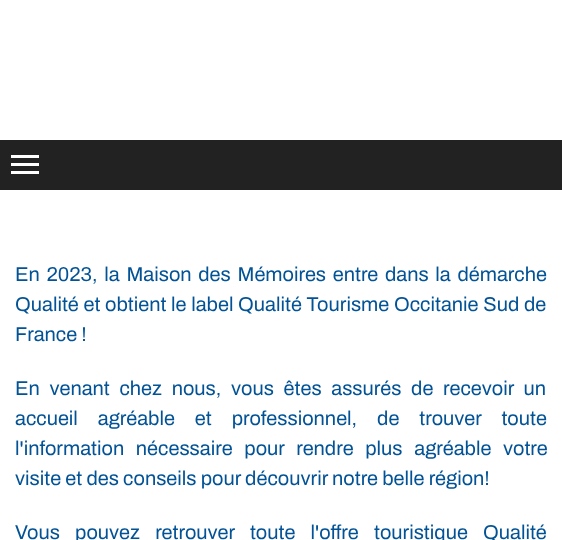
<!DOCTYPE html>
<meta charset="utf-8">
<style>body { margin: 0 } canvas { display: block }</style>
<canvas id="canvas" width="562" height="540"></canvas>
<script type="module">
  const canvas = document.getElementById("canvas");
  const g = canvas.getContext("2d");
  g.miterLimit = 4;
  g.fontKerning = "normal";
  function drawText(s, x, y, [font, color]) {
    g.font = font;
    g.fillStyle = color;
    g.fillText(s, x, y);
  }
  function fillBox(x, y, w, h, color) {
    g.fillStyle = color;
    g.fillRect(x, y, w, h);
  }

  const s1 = ["20px Archivo", "#025296"];

  fillBox(0, 0, 562, 540, "#FFFFFF");
  fillBox(0, 140, 562, 50, "#222222");
  fillBox(11, 163, 28, 3, "#FFFFFF");
  fillBox(11, 155, 28, 3, "#FFFFFF");
  fillBox(11, 171, 28, 3, "#FFFFFF");
  g.wordSpacing = "2.5px";
  drawText("En 2023, la Maison des Mémoires entre dans la démarche", 15, 281, s1);
  g.wordSpacing = "0.5px";
  drawText("Qualité et obtient le label Qualité Tourisme Occitanie Sud de", 15, 311, s1);
  g.wordSpacing = "0px";
  drawText("France !", 15, 341, s1);
  g.wordSpacing = "5.5px";
  drawText("En venant chez nous, vous êtes assurés de recevoir un", 15, 395, s1);
  g.wordSpacing = "15.75px";
  drawText("accueil agréable et professionnel, de trouver toute", 15, 425, s1);
  g.wordSpacing = "7.5px";
  drawText("l'information nécessaire pour rendre plus agréable votre", 15, 455, s1);
  g.wordSpacing = "0px";
  drawText("visite et des conseils pour découvrir notre belle région!", 15, 485, s1);
  g.wordSpacing = "11px";
  drawText("Vous pouvez retrouver toute l'offre touristique Qualité", 15, 539, s1);
</script>
